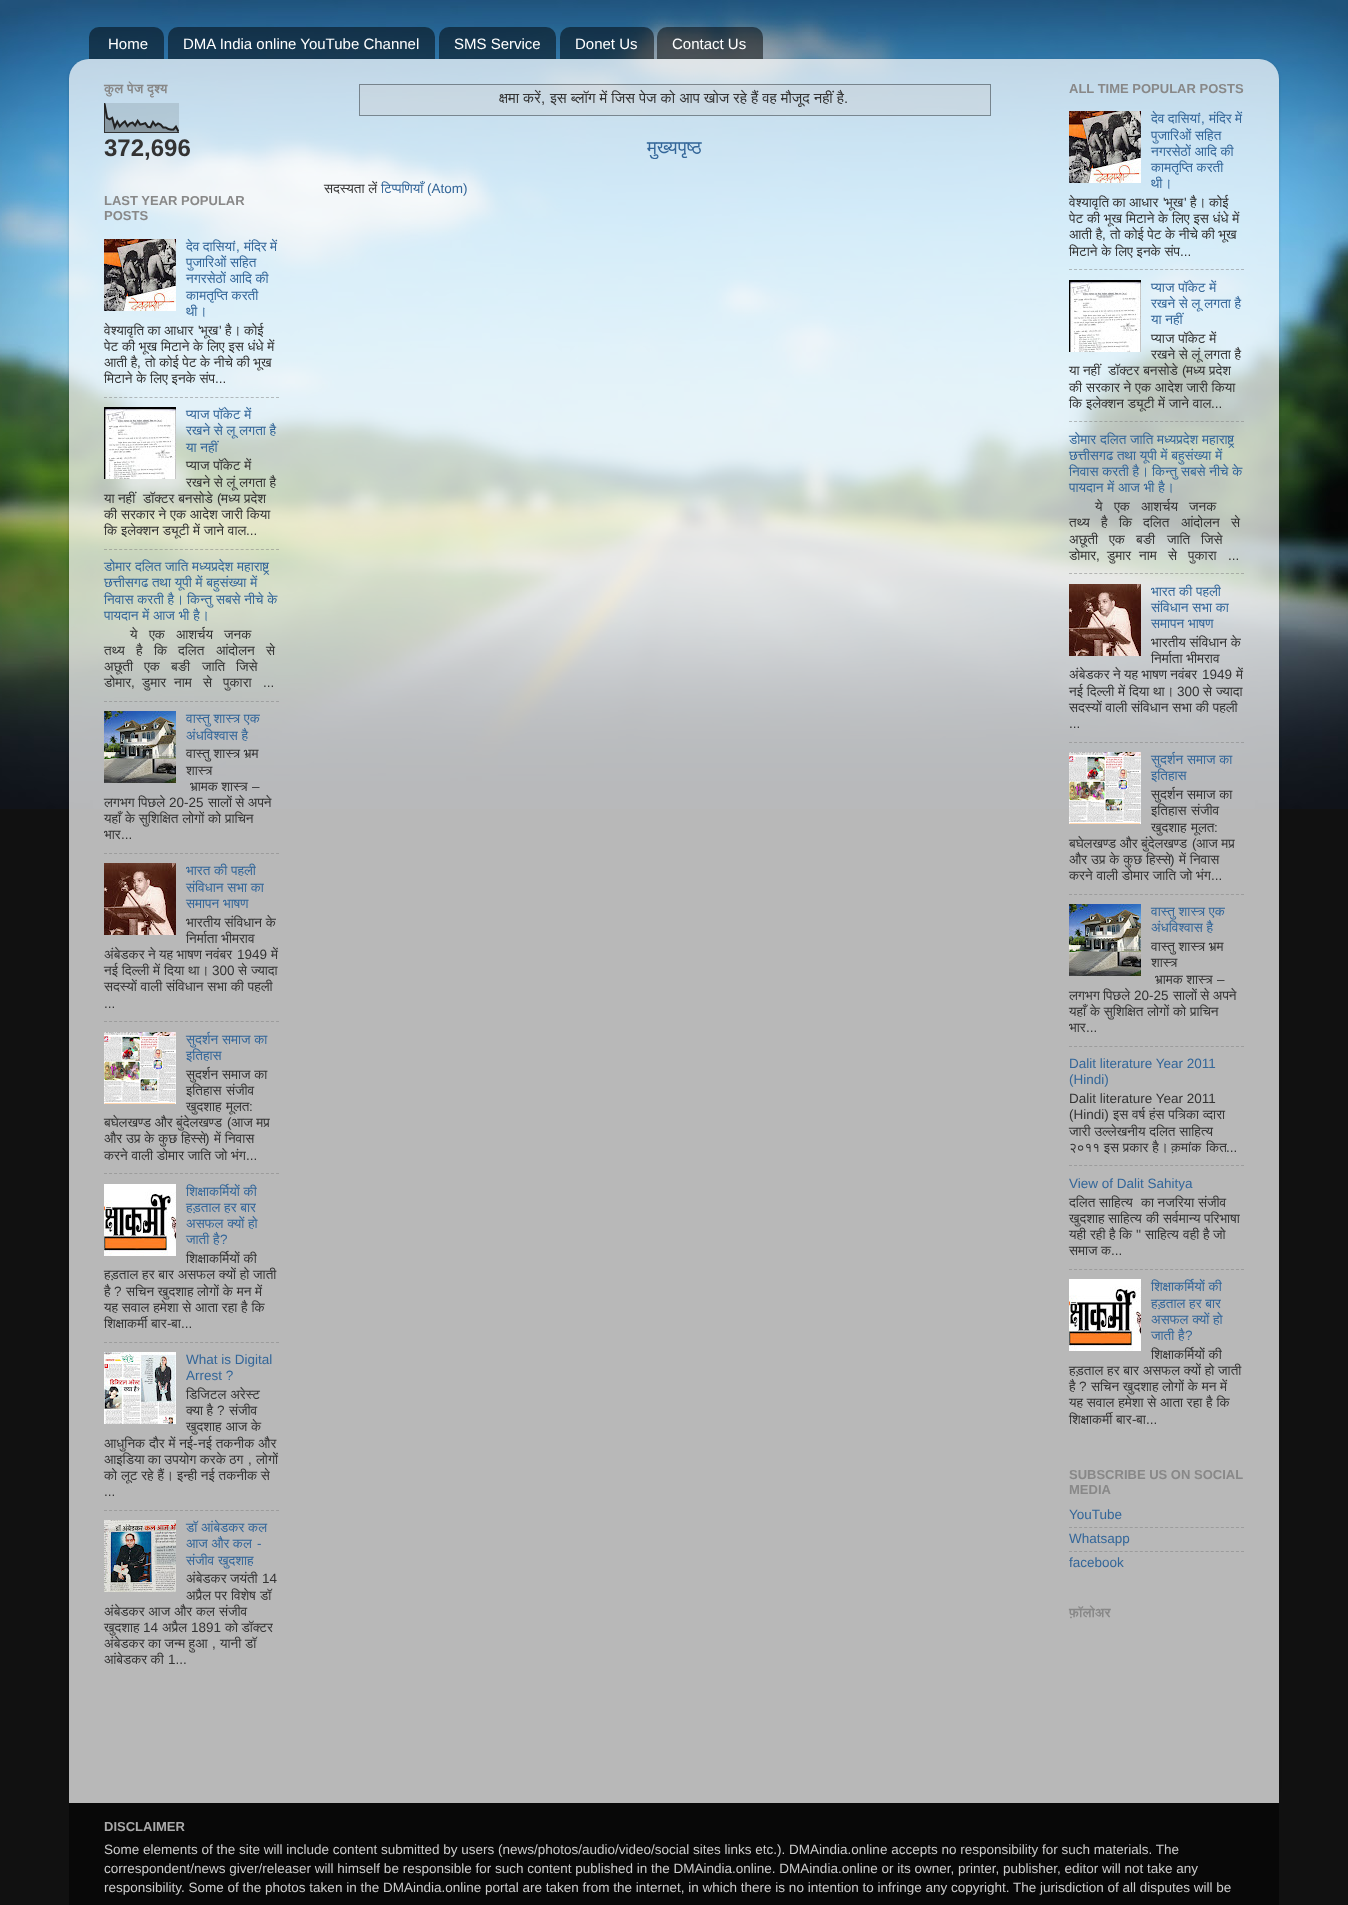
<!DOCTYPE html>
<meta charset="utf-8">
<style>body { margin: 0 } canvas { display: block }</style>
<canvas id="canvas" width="1348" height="1905"></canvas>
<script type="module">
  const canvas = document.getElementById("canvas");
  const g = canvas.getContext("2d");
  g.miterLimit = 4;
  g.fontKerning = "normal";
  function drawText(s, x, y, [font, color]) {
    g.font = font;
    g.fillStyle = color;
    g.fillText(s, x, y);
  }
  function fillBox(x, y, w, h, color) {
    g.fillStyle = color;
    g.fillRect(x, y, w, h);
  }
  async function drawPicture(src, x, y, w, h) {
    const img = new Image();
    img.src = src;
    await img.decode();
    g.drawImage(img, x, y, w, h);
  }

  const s1 = ["15px Liberation Sans", "#FFFFFF"];
  const s2 = ["600 13px FreeSans", "#888888"];
  const s3 = ["bold 24px Liberation Sans", "#333333"];
  const s4 = ["bold 13px Liberation Sans", "#888888"];
  const s5 = ["13.5px FreeSans", "#336699"];
  const s6 = ["13.5px Liberation Sans", "#336699"];
  const s7 = ["13.5px FreeSans", "#333333"];
  const s8 = ["13.5px Liberation Sans", "#333333"];
  const s9 = ["14.8px FreeSans", "#333333"];
  const s10 = ["14.8px Liberation Sans", "#333333"];
  const s11 = ["19px FreeSans", "#336699"];
  const s12 = ["bold 13px Liberation Sans", "#AAAAAA"];
  const s13 = ["13.5px Liberation Sans", "#CCCCCC"];

  fillBox(0, 0, 1348, 1905, "#111111");
  await drawPicture("pic1.png", 0, 0, 1348, 809);
  await drawPicture("pic2.png", 89, 27, 75, 32);
  drawText("Home", 108, 49, s1);
  await drawPicture("pic3.png", 168, 27, 267, 32);
  drawText("DMA India online YouTube Channel", 183, 49, s1);
  await drawPicture("pic4.png", 439, 27, 117, 32);
  drawText("SMS Service", 454, 49, s1);
  await drawPicture("pic5.png", 560, 27, 94, 32);
  drawText("Donet Us", 575, 49, s1);
  await drawPicture("pic6.png", 657, 27, 106, 32);
  drawText("Contact Us", 672, 49, s1);
  g.save();
  g.beginPath();
  g.moveTo(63, 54);
  g.lineTo(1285, 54);
  g.lineTo(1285, 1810);
  g.lineTo(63, 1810);
  g.closePath();
  g.moveTo(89, 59);
  g.lineTo(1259, 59);
  g.bezierCurveTo(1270, 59, 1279, 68, 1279, 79);
  g.lineTo(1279, 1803);
  g.lineTo(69, 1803);
  g.lineTo(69, 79);
  g.bezierCurveTo(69, 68, 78, 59, 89, 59);
  g.closePath();
  g.clip("evenodd");
  g.fillStyle = "rgba(0, 0, 0, 0.15)";
  g.filter = "blur(1.5px)";
  g.beginPath();
  g.roundRect(69, 60, 1210, 1744, 20);
  g.fill();
  g.filter = "none";
  g.restore();
  await drawPicture("pic7.png", 69, 59, 1210, 1744);
  drawText("कुल पेज दृश्य", 104, 93, s2);
  await drawPicture("pic8.png", 104, 103, 75, 30);
  drawText("372,696", 104, 156, s3);
  drawText("LAST YEAR POPULAR", 104, 205, s4);
  drawText("POSTS", 104, 220, s4);
  await drawPicture("pic9.png", 104, 239, 72, 72);
  drawText("देव दासियां", 186, 251, s5);
  drawText(",", 236, 251, s6);
  drawText("मंदिर में", 244, 251, s5);
  g.wordSpacing = "0.4px";
  drawText("पुजारिओं सहित", 186, 267, s5);
  drawText("नगरसेठों आदि की", 186, 283, s5);
  drawText("कामतृप्ति करती", 186, 300, s5);
  g.wordSpacing = "0px";
  drawText("थी।", 186, 316, s5);
  drawText("वेश्यावृति का आधार", 104, 335, s7);
  drawText("'", 198, 335, s8);
  drawText("'", 219, 335, s8);
  drawText("है। कोई", 225, 335, s7);
  drawText("भूख", 200, 335, s7);
  g.wordSpacing = "0.4px";
  drawText("पेट की भूख मिटाने के लिए इस धंधे में", 104, 351, s7);
  g.wordSpacing = "0.25px";
  drawText("आती है", 104, 367, s7);
  g.wordSpacing = "0px";
  drawText(",", 137, 367, s8);
  g.wordSpacing = "0.25px";
  drawText("तो कोई पेट के नीचे की भूख", 145, 367, s7);
  g.wordSpacing = "0.4px";
  drawText("मिटाने के लिए इनके संप", 104, 383, s7);
  g.wordSpacing = "0px";
  drawText("...", 215, 383, s8);
  g.beginPath();
  g.moveTo(104, 397.5);
  g.lineTo(279, 397.5);
  g.strokeStyle = "rgba(128, 128, 128, 0.5)";
  g.setLineDash([3, 2.06]);
  g.stroke();
  await drawPicture("pic10.png", 104, 407, 72, 72);
  g.wordSpacing = "0.4px";
  drawText("प्याज पॉकेट में", 186, 419, s5);
  drawText("रखने से लू लगता है", 186, 435, s5);
  drawText("या नहीं", 186, 452, s5);
  drawText("प्याज पॉकेट में", 186, 470, s7);
  drawText("रखने से लूं लगता है", 186, 487, s7);
  g.wordSpacing = "0px";
  drawText("या नहीं", 104, 503, s7);
  g.wordSpacing = "0.4px";
  drawText("डॉक्टर बनसोडे", 143, 503, s7);
  g.wordSpacing = "0px";
  drawText("(", 217, 503, s8);
  g.wordSpacing = "0.4px";
  drawText("मध्य प्रदेश", 221, 503, s7);
  drawText("की सरकार ने एक आदेश जारी किया", 104, 519, s7);
  drawText("कि इलेक्शन ड्यूटी में जाने वाल", 104, 535, s7);
  g.wordSpacing = "0px";
  drawText("...", 246, 535, s8);
  g.beginPath();
  g.moveTo(104, 549.5);
  g.lineTo(279, 549.5);
  g.stroke();
  g.wordSpacing = "0.4px";
  drawText("डोमार दलित जाति मध्यप्रदेश महाराष्ट्र", 104, 571, s5);
  drawText("छत्तीसगढ तथा यूपी में बहुसंख्या में", 104, 587, s5);
  drawText("निवास करती है। किन्तु सबसे नीचे के", 104, 604, s5);
  drawText("पायदान में आज भी है।", 104, 620, s5);
  g.wordSpacing = "0px";
  drawText("ये", 130, 639, s7);
  drawText("एक", 149, 639, s7);
  drawText("आशर्चय", 176, 639, s7);
  drawText("जनक", 224, 639, s7);
  drawText("तथ्य", 104, 655, s7);
  drawText("है", 136, 655, s7);
  drawText("कि", 154, 655, s7);
  drawText("दलित", 178, 655, s7);
  drawText("आंदोलन", 216, 655, s7);
  drawText("से", 266, 655, s7);
  drawText("अछूती", 104, 671, s7);
  drawText("एक", 144, 671, s7);
  drawText("बङी", 171, 671, s7);
  drawText("जाति", 202, 671, s7);
  drawText("जिसे", 236, 671, s7);
  drawText("डोमार", 104, 687, s7);
  drawText(",", 131, 687, s8);
  drawText("डुमार", 142, 687, s7);
  drawText("नाम", 174, 687, s7);
  drawText("से", 203, 687, s7);
  drawText("पुकारा", 223, 687, s7);
  drawText("...", 263, 687, s8);
  g.beginPath();
  g.moveTo(104, 701.5);
  g.lineTo(279, 701.5);
  g.strokeStyle = "#9FA0A0";
  g.stroke();
  await drawPicture("pic11.png", 104, 711, 72, 72);
  g.wordSpacing = "0.4px";
  drawText("वास्तु शास्त्र एक", 186, 723, s5);
  drawText("अंधविश्‍वास है", 186, 740, s5);
  drawText("वास्तु शास्त्र भ्रम", 186, 758, s7);
  g.wordSpacing = "0px";
  drawText("शास्त्र", 186, 775, s7);
  drawText("भ्रामक शास्त्र", 190, 791, s7);
  drawText("–", 252, 791, s8);
  drawText("लगभग पिछले", 104, 807, s7);
  drawText("20-25", 169, 807, s8);
  drawText("सालों से अपने", 208, 807, s7);
  g.wordSpacing = "0.4px";
  drawText("यहाँ के सुशिक्षित लोगों को प्राचिन", 104, 823, s7);
  g.wordSpacing = "0px";
  drawText("भार", 104, 839, s7);
  drawText("...", 121, 839, s8);
  g.beginPath();
  g.moveTo(104, 853.5);
  g.lineTo(279, 853.5);
  g.strokeStyle = "#9C9C9C";
  g.stroke();
  await drawPicture("pic12.png", 104, 863, 72, 72);
  g.wordSpacing = "0.4px";
  drawText("भारत की पहली", 186, 875, s5);
  drawText("संविधान सभा का", 186, 892, s5);
  drawText("समापन भाषण", 186, 908, s5);
  drawText("भारतीय संविधान के", 186, 927, s7);
  drawText("निर्माता भीमराव", 186, 943, s7);
  g.wordSpacing = "0px";
  drawText("अंबेडकर ने यह भाषण नवंबर", 104, 959, s7);
  drawText("1949", 237, 959, s8);
  drawText("में", 271, 959, s7);
  g.wordSpacing = "0.5px";
  drawText("नई दिल्ली में दिया था।", 104, 975, s7);
  g.wordSpacing = "0px";
  drawText("300", 212, 975, s8);
  g.wordSpacing = "0.5px";
  drawText("से ज्यादा", 238, 975, s7);
  g.wordSpacing = "0.4px";
  drawText("सदस्यों वाली संविधान सभा की पहली", 104, 991, s7);
  g.wordSpacing = "0px";
  drawText("...", 104, 1008, s8);
  g.beginPath();
  g.moveTo(104, 1021.5);
  g.lineTo(279, 1021.5);
  g.stroke();
  await drawPicture("pic13.png", 104, 1032, 72, 72);
  g.wordSpacing = "0.4px";
  drawText("सुदर्शन समाज का", 186, 1044, s5);
  g.wordSpacing = "0px";
  drawText("इतिहास", 186, 1060, s5);
  g.wordSpacing = "0.4px";
  drawText("सुदर्शन समाज का", 186, 1079, s7);
  g.wordSpacing = "0px";
  drawText("इतिहास", 186, 1095, s7);
  drawText("संजीव", 226, 1095, s7);
  drawText("खुदशाह", 186, 1111, s7);
  drawText("मूलत", 226, 1111, s7);
  drawText(":", 249, 1111, s8);
  drawText("बघेलखण्ड और बुंदेलखण्ड", 104, 1127, s7);
  drawText("(", 227, 1127, s8);
  drawText("आज मप्र", 231, 1127, s7);
  g.wordSpacing = "0.5px";
  drawText("और उप्र के कुछ हिस्से", 104, 1143, s7);
  g.wordSpacing = "0px";
  drawText(")", 205, 1143, s8);
  g.wordSpacing = "0.5px";
  drawText("में निवास", 214, 1143, s7);
  g.wordSpacing = "0.4px";
  drawText("करने वाली डोमार जाति जो भंग", 104, 1160, s7);
  g.wordSpacing = "0px";
  drawText("...", 246, 1160, s8);
  g.beginPath();
  g.moveTo(104, 1173.5);
  g.lineTo(279, 1173.5);
  g.stroke();
  await drawPicture("pic14.png", 104, 1184, 72, 72);
  g.wordSpacing = "0.4px";
  drawText("शिक्षाकर्मियों की", 186, 1196, s5);
  drawText("हड़ताल हर बार", 186, 1212, s5);
  drawText("असफल क्‍यों हो", 186, 1228, s5);
  drawText("जाती है", 186, 1244, s5);
  g.wordSpacing = "0px";
  drawText("?", 220, 1244, s6);
  g.wordSpacing = "0.4px";
  drawText("शिक्षाकर्मियों की", 186, 1263, s7);
  drawText("हड़ताल हर बार असफल क्‍यों हो जाती", 104, 1279, s7);
  g.wordSpacing = "0px";
  drawText("है", 104, 1296, s7);
  drawText("?", 114, 1296, s8);
  g.wordSpacing = "0.4px";
  drawText("सचिन खुदशाह", 126, 1296, s7);
  drawText("लोगों के मन में", 197, 1296, s7);
  drawText("यह सवाल हमेशा से आता रहा है कि", 104, 1312, s7);
  drawText("शिक्षाकर्मी बार", 104, 1328, s7);
  g.wordSpacing = "0px";
  drawText("-", 167, 1328, s8);
  drawText("बा", 171, 1328, s7);
  drawText("...", 181, 1328, s8);
  g.beginPath();
  g.moveTo(104, 1342.5);
  g.lineTo(279, 1342.5);
  g.stroke();
  await drawPicture("pic15.png", 104, 1352, 72, 72);
  drawText("What is Digital", 186, 1364, s6);
  drawText("Arrest ?", 186, 1380, s6);
  g.wordSpacing = "0.4px";
  drawText("डिजिटल अरेस्ट", 186, 1399, s7);
  g.wordSpacing = "0px";
  drawText("क्या है", 186, 1415, s7);
  drawText("?", 217, 1415, s8);
  drawText("संजीव", 229, 1415, s7);
  g.wordSpacing = "0.4px";
  drawText("खुदशाह आज के", 186, 1431, s7);
  drawText("आधुनिक दौर में नई", 104, 1448, s7);
  g.wordSpacing = "0px";
  drawText("-", 193, 1448, s8);
  g.wordSpacing = "0.4px";
  drawText("नई तकनीक और", 198, 1448, s7);
  g.wordSpacing = "0px";
  drawText("आइडिया का उपयोग करके ठग", 104, 1464, s7);
  drawText(",", 248, 1464, s8);
  drawText("लोगों", 256, 1464, s7);
  g.wordSpacing = "0.4px";
  drawText("को लूट रहे हैं। इन्‍ही नई तकनीक से", 104, 1480, s7);
  g.wordSpacing = "0px";
  drawText("...", 104, 1496, s8);
  g.beginPath();
  g.moveTo(104, 1510.5);
  g.lineTo(279, 1510.5);
  g.stroke();
  await drawPicture("pic16.png", 104, 1520, 72, 72);
  g.wordSpacing = "0.4px";
  drawText("डॉ आंबेडकर कल", 186, 1532, s5);
  g.wordSpacing = "0px";
  drawText("आज और कल", 186, 1548, s5);
  drawText("-", 257, 1548, s6);
  g.wordSpacing = "0.4px";
  drawText("संजीव खुदशाह", 186, 1565, s5);
  g.wordSpacing = "0px";
  drawText("अंबेडकर जयंती", 186, 1583, s7);
  drawText("14", 262, 1583, s8);
  g.wordSpacing = "0.4px";
  drawText("अप्रैल पर विशेष", 186, 1600, s7);
  g.wordSpacing = "0px";
  drawText("डॉ", 260, 1600, s7);
  g.wordSpacing = "0.4px";
  drawText("अंबेडकर आज और कल", 104, 1616, s7);
  g.wordSpacing = "0px";
  drawText("संजीव", 219, 1616, s7);
  drawText("खुदशाह", 104, 1632, s7);
  drawText("14", 143, 1632, s8);
  drawText("अप्रैल", 162, 1632, s7);
  drawText("1891", 191, 1632, s8);
  drawText("को डॉक्टर", 225, 1632, s7);
  drawText("अंबेडकर का जन्म हुआ", 104, 1648, s7);
  drawText(",", 212, 1648, s8);
  g.wordSpacing = "0.4px";
  drawText("यानी डॉ", 220, 1648, s7);
  g.wordSpacing = "0px";
  drawText("आंबेडकर की", 104, 1664, s7);
  drawText("1...", 168, 1664, s8);
  g.strokeStyle = "rgba(0, 0, 0, 0.4)";
  g.setLineDash([]);
  g.strokeRect(359.5, 84.5, 631, 31);
  fillBox(360, 85, 630, 30, "rgba(204, 204, 204, 0.32)");
  g.wordSpacing = "0.4px";
  drawText("क्षमा करें", 499, 103, s9);
  g.wordSpacing = "0px";
  drawText(",", 541, 103, s10);
  g.wordSpacing = "0.4px";
  drawText("इस ब्लॉग में जिस पेज को आप खोज रहे हैं वह मौजूद नहीं है", 550, 103, s9);
  g.wordSpacing = "0px";
  drawText(".", 844, 103, s10);
  drawText("मुख्यपृष्ठ", 647, 154, s11);
  g.wordSpacing = "0.4px";
  drawText("सदस्यता लें", 324, 193, s7);
  g.wordSpacing = "0px";
  drawText("टिप्पणियाँ", 381, 193, s5);
  drawText("(Atom)", 427, 193, s6);
  drawText("ALL TIME POPULAR POSTS", 1069, 93, s4);
  await drawPicture("pic9.png", 1069, 111, 72, 72);
  drawText("देव दासियां", 1151, 123, s5);
  drawText(",", 1201, 123, s6);
  drawText("मंदिर में", 1209, 123, s5);
  g.wordSpacing = "0.4px";
  drawText("पुजारिओं सहित", 1151, 140, s5);
  drawText("नगरसेठों आदि की", 1151, 156, s5);
  drawText("कामतृप्ति करती", 1151, 172, s5);
  g.wordSpacing = "0px";
  drawText("थी।", 1151, 188, s5);
  drawText("वेश्यावृति का आधार", 1069, 207, s7);
  drawText("'", 1163, 207, s8);
  drawText("'", 1184, 207, s8);
  drawText("है। कोई", 1190, 207, s7);
  drawText("भूख", 1165, 207, s7);
  g.wordSpacing = "0.4px";
  drawText("पेट की भूख मिटाने के लिए इस धंधे में", 1069, 223, s7);
  g.wordSpacing = "0.25px";
  drawText("आती है", 1069, 239, s7);
  g.wordSpacing = "0px";
  drawText(",", 1102, 239, s8);
  g.wordSpacing = "0.25px";
  drawText("तो कोई पेट के नीचे की भूख", 1110, 239, s7);
  g.wordSpacing = "0.4px";
  drawText("मिटाने के लिए इनके संप", 1069, 256, s7);
  g.wordSpacing = "0px";
  drawText("...", 1180, 256, s8);
  g.beginPath();
  g.moveTo(1069, 269.5);
  g.lineTo(1244, 269.5);
  g.strokeStyle = "rgba(128, 128, 128, 0.5)";
  g.setLineDash([3, 2.06]);
  g.stroke();
  await drawPicture("pic10.png", 1069, 280, 72, 72);
  g.wordSpacing = "0.4px";
  drawText("प्याज पॉकेट में", 1151, 292, s5);
  drawText("रखने से लू लगता है", 1151, 308, s5);
  drawText("या नहीं", 1151, 324, s5);
  drawText("प्याज पॉकेट में", 1151, 343, s7);
  drawText("रखने से लूं लगता है", 1151, 359, s7);
  g.wordSpacing = "0px";
  drawText("या नहीं", 1069, 375, s7);
  g.wordSpacing = "0.4px";
  drawText("डॉक्टर बनसोडे", 1108, 375, s7);
  g.wordSpacing = "0px";
  drawText("(", 1182, 375, s8);
  g.wordSpacing = "0.4px";
  drawText("मध्य प्रदेश", 1186, 375, s7);
  drawText("की सरकार ने एक आदेश जारी किया", 1069, 392, s7);
  drawText("कि इलेक्शन ड्यूटी में जाने वाल", 1069, 408, s7);
  g.wordSpacing = "0px";
  drawText("...", 1211, 408, s8);
  g.beginPath();
  g.moveTo(1069, 421.5);
  g.lineTo(1244, 421.5);
  g.stroke();
  g.wordSpacing = "0.4px";
  drawText("डोमार दलित जाति मध्यप्रदेश महाराष्ट्र", 1069, 444, s5);
  drawText("छत्तीसगढ तथा यूपी में बहुसंख्या में", 1069, 460, s5);
  drawText("निवास करती है। किन्तु सबसे नीचे के", 1069, 476, s5);
  drawText("पायदान में आज भी है।", 1069, 492, s5);
  g.wordSpacing = "0px";
  drawText("ये", 1095, 511, s7);
  drawText("एक", 1114, 511, s7);
  drawText("आशर्चय", 1141, 511, s7);
  drawText("जनक", 1189, 511, s7);
  drawText("तथ्य", 1069, 527, s7);
  drawText("है", 1101, 527, s7);
  drawText("कि", 1119, 527, s7);
  drawText("दलित", 1143, 527, s7);
  drawText("आंदोलन", 1181, 527, s7);
  drawText("से", 1231, 527, s7);
  drawText("अछूती", 1069, 544, s7);
  drawText("एक", 1109, 544, s7);
  drawText("बङी", 1136, 544, s7);
  drawText("जाति", 1167, 544, s7);
  drawText("जिसे", 1201, 544, s7);
  drawText("डोमार", 1069, 560, s7);
  drawText(",", 1096, 560, s8);
  drawText("डुमार", 1107, 560, s7);
  drawText("नाम", 1139, 560, s7);
  drawText("से", 1168, 560, s7);
  drawText("पुकारा", 1188, 560, s7);
  drawText("...", 1228, 560, s8);
  g.beginPath();
  g.moveTo(1069, 573.5);
  g.lineTo(1244, 573.5);
  g.stroke();
  await drawPicture("pic12.png", 1069, 584, 72, 72);
  g.wordSpacing = "0.4px";
  drawText("भारत की पहली", 1151, 596, s5);
  drawText("संविधान सभा का", 1151, 612, s5);
  drawText("समापन भाषण", 1151, 628, s5);
  drawText("भारतीय संविधान के", 1151, 647, s7);
  drawText("निर्माता भीमराव", 1151, 663, s7);
  g.wordSpacing = "0px";
  drawText("अंबेडकर ने यह भाषण नवंबर", 1069, 679, s7);
  drawText("1949", 1202, 679, s8);
  drawText("में", 1236, 679, s7);
  g.wordSpacing = "0.5px";
  drawText("नई दिल्ली में दिया था।", 1069, 696, s7);
  g.wordSpacing = "0px";
  drawText("300", 1177, 696, s8);
  g.wordSpacing = "0.5px";
  drawText("से ज्यादा", 1203, 696, s7);
  g.wordSpacing = "0.4px";
  drawText("सदस्यों वाली संविधान सभा की पहली", 1069, 712, s7);
  g.wordSpacing = "0px";
  drawText("...", 1069, 728, s8);
  g.beginPath();
  g.moveTo(1069, 742.5);
  g.lineTo(1244, 742.5);
  g.strokeStyle = "#9D9E9F";
  g.stroke();
  await drawPicture("pic13.png", 1069, 752, 72, 72);
  g.wordSpacing = "0.4px";
  drawText("सुदर्शन समाज का", 1151, 764, s5);
  g.wordSpacing = "0px";
  drawText("इतिहास", 1151, 780, s5);
  g.wordSpacing = "0.4px";
  drawText("सुदर्शन समाज का", 1151, 799, s7);
  g.wordSpacing = "0px";
  drawText("इतिहास", 1151, 815, s7);
  drawText("संजीव", 1191, 815, s7);
  drawText("खुदशाह", 1151, 832, s7);
  drawText("मूलत", 1191, 832, s7);
  drawText(":", 1214, 832, s8);
  drawText("बघेलखण्ड और बुंदेलखण्ड", 1069, 848, s7);
  drawText("(", 1192, 848, s8);
  drawText("आज मप्र", 1196, 848, s7);
  g.wordSpacing = "0.5px";
  drawText("और उप्र के कुछ हिस्से", 1069, 864, s7);
  g.wordSpacing = "0px";
  drawText(")", 1170, 864, s8);
  g.wordSpacing = "0.5px";
  drawText("में निवास", 1179, 864, s7);
  g.wordSpacing = "0.4px";
  drawText("करने वाली डोमार जाति जो भंग", 1069, 880, s7);
  g.wordSpacing = "0px";
  drawText("...", 1211, 880, s8);
  g.beginPath();
  g.moveTo(1069, 894.5);
  g.lineTo(1244, 894.5);
  g.strokeStyle = "#9C9C9C";
  g.stroke();
  await drawPicture("pic11.png", 1069, 904, 72, 72);
  g.wordSpacing = "0.4px";
  drawText("वास्तु शास्त्र एक", 1151, 916, s5);
  drawText("अंधविश्‍वास है", 1151, 932, s5);
  drawText("वास्तु शास्त्र भ्रम", 1151, 951, s7);
  g.wordSpacing = "0px";
  drawText("शास्त्र", 1151, 967, s7);
  drawText("भ्रामक शास्त्र", 1155, 984, s7);
  drawText("–", 1217, 984, s8);
  drawText("लगभग पिछले", 1069, 1000, s7);
  drawText("20-25", 1134, 1000, s8);
  drawText("सालों से अपने", 1173, 1000, s7);
  g.wordSpacing = "0.4px";
  drawText("यहाँ के सुशिक्षित लोगों को प्राचिन", 1069, 1016, s7);
  g.wordSpacing = "0px";
  drawText("भार", 1069, 1032, s7);
  drawText("...", 1086, 1032, s8);
  g.beginPath();
  g.moveTo(1069, 1046.5);
  g.lineTo(1244, 1046.5);
  g.stroke();
  drawText("Dalit literature Year 2011", 1069, 1068, s6);
  drawText("(Hindi)", 1069, 1084, s6);
  drawText("Dalit literature Year 2011", 1069, 1103, s8);
  drawText("(Hindi)", 1069, 1119, s8);
  g.wordSpacing = "0.4px";
  drawText("इस वर्ष हंस पत्रिका व्दारा", 1113, 1119, s7);
  drawText("जारी उल्लेखनीय दलित साहित्य", 1069, 1136, s7);
  drawText("२०११ इस प्रकार है।", 1069, 1152, s7);
  g.wordSpacing = "0px";
  drawText("क़मांक", 1171, 1152, s7);
  drawText("कित", 1206, 1152, s7);
  drawText("...", 1226, 1152, s8);
  g.beginPath();
  g.moveTo(1069, 1165.5);
  g.lineTo(1244, 1165.5);
  g.stroke();
  drawText("View of Dalit Sahitya", 1069, 1188, s6);
  drawText("दलित", 1069, 1207, s7);
  drawText("साहित्य", 1099, 1207, s7);
  drawText("का नजरिया", 1141, 1207, s7);
  drawText("संजीव", 1198, 1207, s7);
  drawText("खुदशाह", 1069, 1223, s7);
  drawText("साहित्य", 1108, 1223, s7);
  drawText("की", 1146, 1223, s7);
  drawText("सर्वमान्य", 1163, 1223, s7);
  drawText("परिभाषा", 1204, 1223, s7);
  drawText("यही", 1069, 1239, s7);
  drawText("रही", 1090, 1239, s7);
  drawText("है", 1109, 1239, s7);
  drawText("कि", 1119, 1239, s7);
  drawText("''", 1136, 1239, s8);
  drawText("साहित्य", 1145, 1239, s7);
  drawText("वही", 1183, 1239, s7);
  drawText("है", 1203, 1239, s7);
  drawText("जो", 1213, 1239, s7);
  drawText("समाज", 1069, 1255, s7);
  drawText("क", 1101, 1255, s7);
  drawText("...", 1111, 1255, s8);
  g.beginPath();
  g.moveTo(1069, 1269.5);
  g.lineTo(1244, 1269.5);
  g.stroke();
  await drawPicture("pic14.png", 1069, 1279, 72, 72);
  g.wordSpacing = "0.4px";
  drawText("शिक्षाकर्मियों की", 1151, 1291, s5);
  drawText("हड़ताल हर बार", 1151, 1308, s5);
  drawText("असफल क्‍यों हो", 1151, 1324, s5);
  drawText("जाती है", 1151, 1340, s5);
  g.wordSpacing = "0px";
  drawText("?", 1185, 1340, s6);
  g.wordSpacing = "0.4px";
  drawText("शिक्षाकर्मियों की", 1151, 1359, s7);
  drawText("हड़ताल हर बार असफल क्‍यों हो जाती", 1069, 1375, s7);
  g.wordSpacing = "0px";
  drawText("है", 1069, 1391, s7);
  drawText("?", 1079, 1391, s8);
  g.wordSpacing = "0.4px";
  drawText("सचिन खुदशाह", 1091, 1391, s7);
  drawText("लोगों के मन में", 1162, 1391, s7);
  drawText("यह सवाल हमेशा से आता रहा है कि", 1069, 1407, s7);
  drawText("शिक्षाकर्मी बार", 1069, 1424, s7);
  g.wordSpacing = "0px";
  drawText("-", 1132, 1424, s8);
  drawText("बा", 1136, 1424, s7);
  drawText("...", 1146, 1424, s8);
  drawText("SUBSCRIBE US ON SOCIAL", 1069, 1479, s4);
  drawText("MEDIA", 1069, 1494, s4);
  drawText("YouTube", 1069, 1519, s6);
  g.beginPath();
  g.moveTo(1069, 1527.5);
  g.lineTo(1244, 1527.5);
  g.stroke();
  drawText("Whatsapp", 1069, 1543, s6);
  g.beginPath();
  g.moveTo(1069, 1551.5);
  g.lineTo(1244, 1551.5);
  g.stroke();
  drawText("facebook", 1069, 1567, s6);
  drawText("फ़ॉलोअर", 1069, 1617, s2);
  fillBox(69, 1803, 1210, 102, "#080808");
  drawText("DISCLAIMER", 104, 1831, s12);
  drawText("Some elements of the site will include content submitted by users (news/photos/audio/video/social sites links etc.). DMAindia.online accepts no responsibility for such materials. The", 104, 1854, s13);
  drawText("correspondent/news giver/releaser will himself be responsible for such content published in the DMAindia.online. DMAindia.online or its owner, printer, publisher, editor will not take any", 104, 1873, s13);
  drawText("responsibility. Some of the photos taken in the DMAindia.online portal are taken from the internet, in which there is no intention to infringe any copyright. The jurisdiction of all disputes will be", 104, 1892, s13);
</script>
